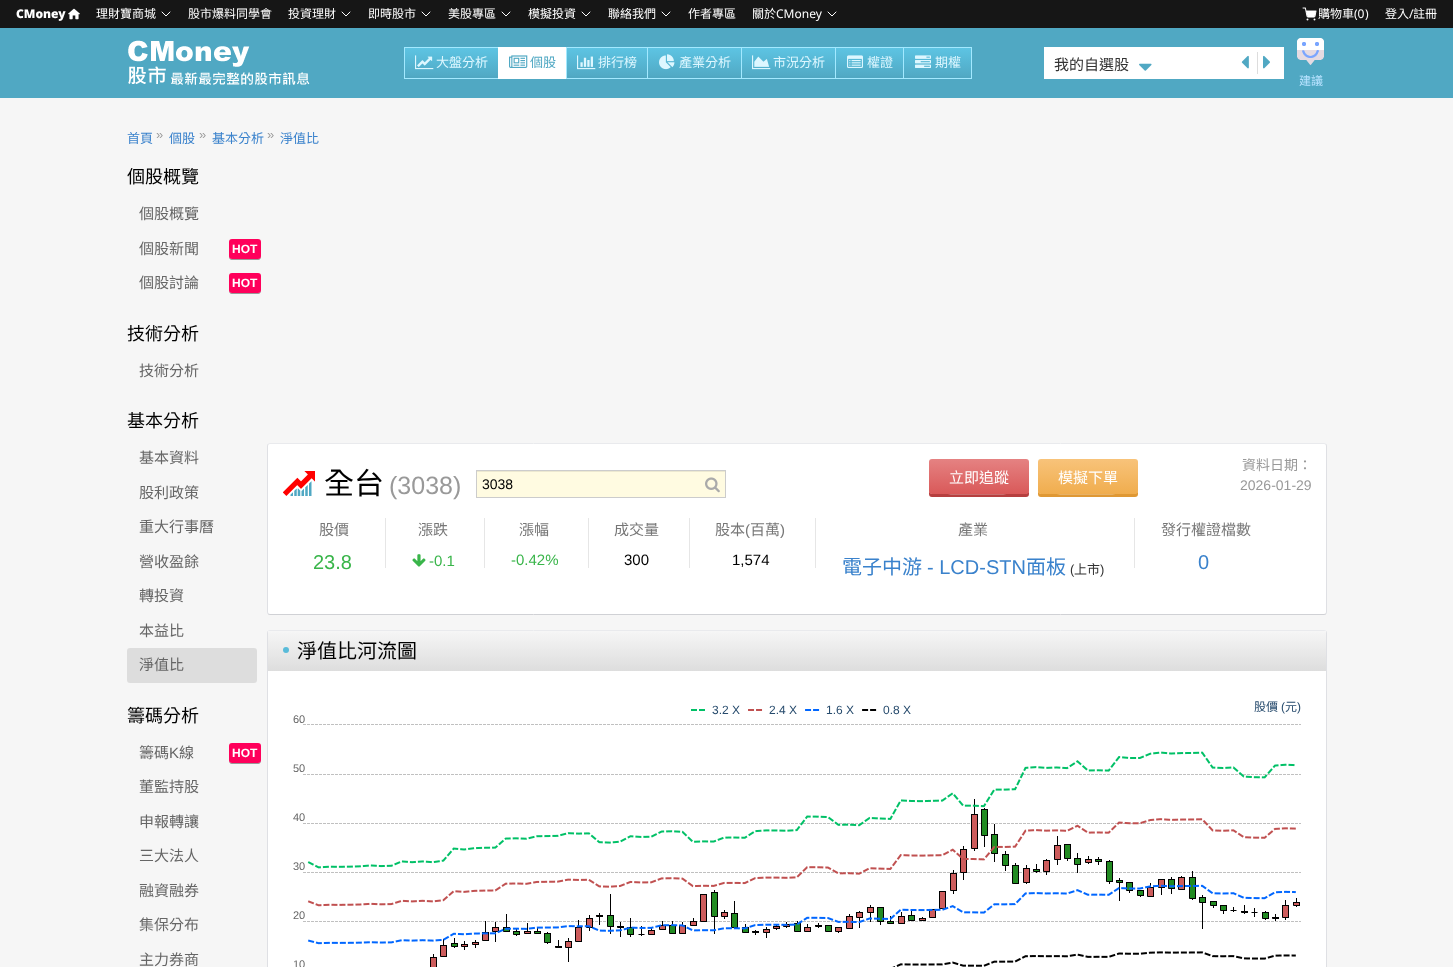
<!DOCTYPE html>
<meta charset="utf-8">
<style>body { margin: 0 } canvas { display: block }</style>
<canvas id="canvas" width="1453" height="967"></canvas>
<script type="module">
  const canvas = document.getElementById("canvas");
  const g = canvas.getContext("2d");
  g.miterLimit = 4;
  g.fontKerning = "normal";
  function drawText(s, x, y, [font, color]) {
    g.font = font;
    g.fillStyle = color;
    g.fillText(s, x, y);
  }
  function fillBox(x, y, w, h, color) {
    g.fillStyle = color;
    g.fillRect(x, y, w, h);
  }
  function fillRounded(x, y, w, h, r, color) {
    g.fillStyle = color;
    g.beginPath();
    g.roundRect(x, y, w, h, r);
    g.fill();
  }
  async function drawPicture(src, x, y, w, h) {
    const img = new Image();
    img.src = src;
    await img.decode();
    g.drawImage(img, x, y, w, h);
  }
  let gradient;

  const s1 = ["900 12px Noto Sans", "#FFFFFF"];
  const s2 = ["12px Noto Sans CJK TC", "#FFFFFF"];
  const s3 = ["12px Noto Sans", "#FFFFFF"];
  const s4 = ["13px Noto Sans CJK TC", "#DDF7FF"];
  const s5 = ["13px Noto Sans CJK TC", "#50A8C3"];
  const s6 = ["15px Noto Sans CJK TC", "#333333"];
  const s7 = ["12px Noto Sans CJK TC", "#B8E3FF"];
  const s8 = ["13px Noto Sans CJK TC", "#3A82CC"];
  const s9 = ["13px Liberation Sans", "#999999"];
  const s10 = ["18px Noto Sans CJK TC", "#000000"];
  const s11 = ["15px Noto Sans CJK TC", "#666666"];
  const s12 = ["bold 12px Liberation Sans", "#FFFFFF"];
  const s13 = ["15px Liberation Sans", "#666666"];
  const s14 = ["30px Noto Sans CJK TC", "#000000"];
  const s15 = ["25px Liberation Sans", "#999999"];
  const s16 = ["14px Liberation Sans", "#000000"];
  const s17 = ["15px Noto Sans CJK TC", "#FFFFFF"];
  const s18 = ["14px Noto Sans CJK TC", "#999999"];
  const s19 = ["14px Liberation Sans", "#999999"];
  const s20 = ["15px Noto Sans CJK TC", "#777777"];
  const s21 = ["20px Liberation Sans", "#39B54A"];
  const s22 = ["15px Liberation Sans", "#39B54A"];
  const s23 = ["15px Liberation Sans", "#000000"];
  const s24 = ["15px Liberation Sans", "#777777"];
  const s25 = ["20px Noto Sans CJK TC", "#3A82CC"];
  const s26 = ["20px Liberation Sans", "#3A82CC"];
  const s27 = ["13px Liberation Sans", "#333333"];
  const s28 = ["13px Noto Sans CJK TC", "#333333"];
  const s29 = ["20px Noto Sans CJK TC", "#000000"];
  const s30 = ["12px Liberation Sans", "#274B6D"];
  const s31 = ["12px Noto Sans CJK TC", "#274B6D"];
  const s32 = ["11px Liberation Sans", "#666666"];

  fillBox(0, 0, 1453, 967, "#F6F6F6");
  fillBox(0, 0, 1453, 28, "#161616");
  drawText("CMoney", 16, 18, s1);
  await drawPicture("pic1.png", 68, 8, 12, 12);
  drawText("理財寶商城", 96, 18, s2);
  g.beginPath();
  g.moveTo(162, 12);
  g.lineTo(166, 16);
  g.lineTo(170, 12);
  g.strokeStyle = "#FFFFFF";
  g.lineCap = "round";
  g.lineJoin = "round";
  g.stroke();
  drawText("股市爆料同學會", 188, 18, s2);
  drawText("投資理財", 288, 18, s2);
  g.beginPath();
  g.moveTo(342, 12);
  g.lineTo(346, 16);
  g.lineTo(350, 12);
  g.stroke();
  drawText("即時股市", 368, 18, s2);
  g.beginPath();
  g.moveTo(422, 12);
  g.lineTo(426, 16);
  g.lineTo(430, 12);
  g.stroke();
  drawText("美股專區", 448, 18, s2);
  g.beginPath();
  g.moveTo(502, 12);
  g.lineTo(506, 16);
  g.lineTo(510, 12);
  g.stroke();
  drawText("模擬投資", 528, 18, s2);
  g.beginPath();
  g.moveTo(582, 12);
  g.lineTo(586, 16);
  g.lineTo(590, 12);
  g.stroke();
  drawText("聯絡我們", 608, 18, s2);
  g.beginPath();
  g.moveTo(662, 12);
  g.lineTo(666, 16);
  g.lineTo(670, 12);
  g.stroke();
  drawText("作者專區", 688, 18, s2);
  drawText("關於", 752, 18, s2);
  drawText("CMoney", 776, 18, s3);
  g.beginPath();
  g.moveTo(828, 12);
  g.lineTo(832, 16);
  g.lineTo(836, 12);
  g.stroke();
  await drawPicture("pic2.png", 1302, 7, 15, 14);
  drawText("購物車", 1318, 18, s2);
  drawText("(0", 1354, 18, s3);
  drawText(")", 1365, 18, s3);
  drawText("登入", 1385, 18, s2);
  drawText("/", 1409, 18, s3);
  drawText("註冊", 1413, 18, s2);
  fillBox(0, 28, 1453, 70, "#50A8C3");
  await drawPicture("pic3.png", 128, 40, 182, 45);
  gradient = g.createLinearGradient(452, 48, 452, 78);
  gradient.addColorStop(0, "#5DC4E3");
  gradient.addColorStop(1, "#50A8C3");
  g.fillStyle = gradient;
  g.fillRect(405, 48, 93, 28);
  g.strokeStyle = "#A3E9FF";
  g.lineJoin = "miter";
  g.strokeRect(404.5, 47.5, 94, 31);
  await drawPicture("pic4.png", 415, 55, 19, 15);
  drawText("大盤分析", 436, 67, s4);
  fillBox(498, 47, 68, 32, "#FFFFFF");
  await drawPicture("pic5.png", 509, 55, 19, 13);
  drawText("個股", 530, 67, s5);
  gradient = g.createLinearGradient(607, 48, 607, 78);
  gradient.addColorStop(0, "#5DC4E3");
  gradient.addColorStop(1, "#50A8C3");
  g.fillStyle = gradient;
  g.fillRect(567, 48, 80, 28);
  g.strokeRect(566.5, 47.5, 81, 31);
  await drawPicture("pic6.png", 577, 55, 19, 15);
  drawText("排行榜", 598, 67, s4);
  gradient = g.createLinearGradient(695, 48, 695, 78);
  gradient.addColorStop(0, "#5DC4E3");
  gradient.addColorStop(1, "#50A8C3");
  g.fillStyle = gradient;
  g.fillRect(648, 48, 93, 28);
  g.strokeRect(647.5, 47.5, 94, 31);
  await drawPicture("pic7.png", 659, 54, 16, 16);
  drawText("產業分析", 679, 67, s4);
  gradient = g.createLinearGradient(789, 48, 789, 78);
  gradient.addColorStop(0, "#5DC4E3");
  gradient.addColorStop(1, "#50A8C3");
  g.fillStyle = gradient;
  g.fillRect(742, 48, 93, 28);
  g.strokeRect(741.5, 47.5, 94, 31);
  await drawPicture("pic8.png", 752, 55, 19, 15);
  drawText("市況分析", 773, 67, s4);
  gradient = g.createLinearGradient(870, 48, 870, 78);
  gradient.addColorStop(0, "#5DC4E3");
  gradient.addColorStop(1, "#50A8C3");
  g.fillStyle = gradient;
  g.fillRect(836, 48, 67, 28);
  g.strokeRect(835.5, 47.5, 68, 31);
  await drawPicture("pic9.png", 847, 55, 16, 13);
  drawText("權證", 867, 67, s4);
  gradient = g.createLinearGradient(938, 48, 938, 78);
  gradient.addColorStop(0, "#5DC4E3");
  gradient.addColorStop(1, "#50A8C3");
  g.fillStyle = gradient;
  g.fillRect(904, 48, 67, 28);
  g.strokeRect(903.5, 47.5, 68, 31);
  await drawPicture("pic10.png", 915, 55, 16, 13);
  drawText("期權", 935, 67, s4);
  fillBox(1044, 47, 240, 32, "#FFFFFF");
  drawText("我的自選股", 1054, 70, s6);
  await drawPicture("pic11.png", 1139, 63, 13, 8);
  fillBox(1257, 52, 1, 22, "#DDDDDD");
  await drawPicture("pic12.png", 1241, 55, 8, 14);
  await drawPicture("pic13.png", 1263, 55, 7, 14);
  await drawPicture("pic14.png", 1297, 38, 27, 27);
  drawText("建議", 1299, 85, s7);
  drawText("首頁", 127, 143, s8);
  drawText("»", 156, 139, s9);
  drawText("個股", 169, 143, s8);
  drawText("»", 199, 139, s9);
  drawText("基本分析", 212, 143, s8);
  drawText("»", 267, 139, s9);
  drawText("淨值比", 280, 143, s8);
  drawText("個股概覽", 127, 183, s10);
  drawText("個股概覽", 139, 219, s11);
  drawText("個股新聞", 139, 254, s11);
  g.fillStyle = "#999999";
  g.beginPath();
  g.moveTo(229, 256);
  g.bezierCurveTo(229, 261, 232.5, 260, 236.5, 260);
  g.lineTo(253.5, 260);
  g.bezierCurveTo(257.5, 260, 261, 261, 261, 256);
  g.bezierCurveTo(261, 257.5, 259.5, 259, 258, 259);
  g.lineTo(232, 259);
  g.bezierCurveTo(230.5, 259, 229, 257.5, 229, 256);
  g.closePath();
  g.fill();
  fillRounded(229, 239, 32, 20, 3, "#FF005B");
  drawText("HOT", 232, 253, s12);
  drawText("個股討論", 139, 288, s11);
  g.fillStyle = "#999999";
  g.beginPath();
  g.moveTo(229, 290);
  g.bezierCurveTo(229, 295, 232.5, 294, 236.5, 294);
  g.lineTo(253.5, 294);
  g.bezierCurveTo(257.5, 294, 261, 295, 261, 290);
  g.bezierCurveTo(261, 291.5, 259.5, 293, 258, 293);
  g.lineTo(232, 293);
  g.bezierCurveTo(230.5, 293, 229, 291.5, 229, 290);
  g.closePath();
  g.fill();
  fillRounded(229, 273, 32, 20, 3, "#FF005B");
  drawText("HOT", 232, 287, s12);
  drawText("技術分析", 127, 340, s10);
  drawText("技術分析", 139, 376, s11);
  drawText("基本分析", 127, 427, s10);
  drawText("基本資料", 139, 463, s11);
  drawText("股利政策", 139, 498, s11);
  drawText("重大行事曆", 139, 532, s11);
  drawText("營收盈餘", 139, 567, s11);
  drawText("轉投資", 139, 601, s11);
  drawText("本益比", 139, 636, s11);
  fillRounded(127, 648, 130, 35, 3, "#DDDDDD");
  drawText("淨值比", 139, 670, s11);
  drawText("籌碼分析", 127, 722, s10);
  drawText("籌碼", 139, 758, s11);
  drawText("K", 169, 758, s13);
  drawText("線", 179, 758, s11);
  g.fillStyle = "#999999";
  g.beginPath();
  g.moveTo(229, 760);
  g.bezierCurveTo(229, 765, 232.5, 764, 236.5, 764);
  g.lineTo(253.5, 764);
  g.bezierCurveTo(257.5, 764, 261, 765, 261, 760);
  g.bezierCurveTo(261, 761.5, 259.5, 763, 258, 763);
  g.lineTo(232, 763);
  g.bezierCurveTo(230.5, 763, 229, 761.5, 229, 760);
  g.closePath();
  g.fill();
  fillRounded(229, 743, 32, 20, 3, "#FF005B");
  drawText("HOT", 232, 757, s12);
  drawText("董監持股", 139, 792, s11);
  drawText("申報轉讓", 139, 827, s11);
  drawText("三大法人", 139, 861, s11);
  drawText("融資融券", 139, 896, s11);
  drawText("集保分布", 139, 930, s11);
  drawText("主力券商", 139, 965, s11);
  fillRounded(267, 443, 1060, 172, 3, "#FFFFFF");
  g.beginPath();
  g.moveTo(268, 444);
  g.lineTo(270, 443.5);
  g.lineTo(1324, 443.5);
  g.lineTo(1326, 444);
  g.strokeStyle = "#E9EAED";
  g.lineCap = "butt";
  g.stroke();
  g.beginPath();
  g.moveTo(1326, 444);
  g.lineTo(1326.5, 446);
  g.lineTo(1326.5, 612);
  g.lineTo(1326, 614);
  g.strokeStyle = "#DFE0E4";
  g.stroke();
  g.beginPath();
  g.moveTo(1326, 614);
  g.lineTo(1324, 614.5);
  g.lineTo(270, 614.5);
  g.lineTo(268, 614);
  g.strokeStyle = "#D0D1D5";
  g.stroke();
  g.beginPath();
  g.moveTo(268, 614);
  g.lineTo(267.5, 612);
  g.lineTo(267.5, 446);
  g.lineTo(268, 444);
  g.strokeStyle = "#DFE0E4";
  g.stroke();
  await drawPicture("pic15.png", 283, 471, 32, 25);
  drawText("全台", 324, 494, s14);
  drawText("(3038)", 389, 494, s15);
  fillBox(477, 472, 248, 25, "#FFFBE1");
  fillBox(477, 471, 248, 1, "#ECE8D0");
  g.strokeStyle = "#CCCCCC";
  g.strokeRect(476.5, 470.5, 249, 27);
  drawText("3038", 482, 489, s16);
  await drawPicture("pic16.png", 705, 477, 15, 16);
  g.fillStyle = "#B63F3F";
  g.beginPath();
  g.moveTo(929, 491);
  g.lineTo(929, 494);
  g.bezierCurveTo(929, 496, 930, 497, 932, 497);
  g.lineTo(1026, 497);
  g.bezierCurveTo(1028, 497, 1029, 496, 1029, 494);
  g.lineTo(1029, 491);
  g.lineTo(1028, 493);
  g.bezierCurveTo(1026, 495, 942, 494, 932, 494);
  g.lineTo(930, 493);
  g.closePath();
  g.fill();
  gradient = g.createLinearGradient(979, 459, 979, 494);
  gradient.addColorStop(0, "#E58282");
  gradient.addColorStop(1, "#D95959");
  g.fillStyle = gradient;
  g.beginPath();
  g.roundRect(929, 459, 100, 35, 3);
  g.fill();
  drawText("立即追蹤", 949, 483, s17);
  g.fillStyle = "#DF9834";
  g.beginPath();
  g.moveTo(1038, 491);
  g.lineTo(1038, 494);
  g.bezierCurveTo(1038, 496, 1039, 497, 1041, 497);
  g.lineTo(1135, 497);
  g.bezierCurveTo(1137, 497, 1138, 496, 1138, 494);
  g.lineTo(1138, 491);
  g.lineTo(1137, 493);
  g.bezierCurveTo(1135, 495, 1051, 494, 1041, 494);
  g.lineTo(1039, 493);
  g.closePath();
  g.fill();
  gradient = g.createLinearGradient(1088, 459, 1088, 494);
  gradient.addColorStop(0, "#F8C37A");
  gradient.addColorStop(1, "#F0AD4E");
  g.fillStyle = gradient;
  g.beginPath();
  g.roundRect(1038, 459, 100, 35, 3);
  g.fill();
  drawText("模擬下單", 1058, 483, s17);
  drawText("資料日期：", 1242, 470, s18);
  drawText("2026-01-29", 1240, 490, s19);
  drawText("股價", 319, 535, s20);
  drawText("23.8", 313, 569, s21);
  fillBox(385, 518, 1, 50, "#E6E6E6");
  drawText("漲跌", 418, 535, s20);
  await drawPicture("pic17.png", 412, 554, 14, 13);
  drawText("-0.1", 429, 566, s22);
  fillBox(484, 518, 1, 50, "#E6E6E6");
  drawText("漲幅", 519, 535, s20);
  drawText("-0.42%", 511, 565, s22);
  fillBox(588, 518, 1, 50, "#E6E6E6");
  drawText("成交量", 614, 535, s20);
  drawText("300", 624, 565, s23);
  fillBox(689, 518, 1, 50, "#E6E6E6");
  drawText("股本", 715, 535, s20);
  drawText("(", 745, 535, s24);
  drawText("百萬", 750, 535, s20);
  drawText(")", 780, 535, s24);
  drawText("1,574", 732, 565, s23);
  fillBox(815, 518, 1, 50, "#E6E6E6");
  drawText("產業", 958, 535, s20);
  drawText("電子中游", 842, 574, s25);
  drawText("- LCD-STN", 927, 574, s26);
  drawText("面板", 1026, 574, s25);
  drawText("(", 1070, 574, s27);
  drawText("上市", 1074, 574, s28);
  drawText(")", 1100, 574, s27);
  fillBox(1134, 518, 1, 50, "#E6E6E6");
  drawText("發行權證檔數", 1161, 535, s20);
  drawText("0", 1198, 569, s26);
  fillRounded(267, 630, 1060, 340, 3, "#FFFFFF");
  g.beginPath();
  g.moveTo(268, 631);
  g.lineTo(270, 630.5);
  g.lineTo(1324, 630.5);
  g.lineTo(1326, 631);
  g.strokeStyle = "#E9EAED";
  g.stroke();
  g.beginPath();
  g.moveTo(1326, 631);
  g.lineTo(1326.5, 633);
  g.lineTo(1326.5, 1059);
  g.lineTo(1326, 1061);
  g.strokeStyle = "#DFE0E4";
  g.stroke();
  g.beginPath();
  g.moveTo(268, 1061);
  g.lineTo(267.5, 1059);
  g.lineTo(267.5, 633);
  g.lineTo(268, 631);
  g.stroke();
  gradient = g.createLinearGradient(797, 631, 797, 671);
  gradient.addColorStop(0, "#F6F6F6");
  gradient.addColorStop(1, "#DDDDDD");
  g.fillStyle = gradient;
  g.fillRect(268, 631, 1058, 40);
  g.fillStyle = "#59BBD9";
  g.beginPath();
  g.arc(286, 650, 3, 0, Math.PI * 2);
  g.fill();
  drawText("淨值比河流圖", 297, 658, s29);
  await drawPicture("pic18.png", 303, 709, 998, 258);
  drawText("3.2 X", 712, 714, s30);
  drawText("2.4 X", 769, 714, s30);
  drawText("1.6 X", 826, 714, s30);
  drawText("0.8 X", 883, 714, s30);
  drawText("股價", 1254, 711, s31);
  drawText("(", 1281, 711, s30);
  drawText("元", 1285, 711, s31);
  drawText(")", 1297, 711, s30);
  drawText("60", 293, 723, s32);
  drawText("50", 293, 772, s32);
  drawText("40", 293, 821, s32);
  drawText("30", 293, 870, s32);
  drawText("20", 293, 919, s32);
  drawText("10", 293, 968, s32);
</script>
